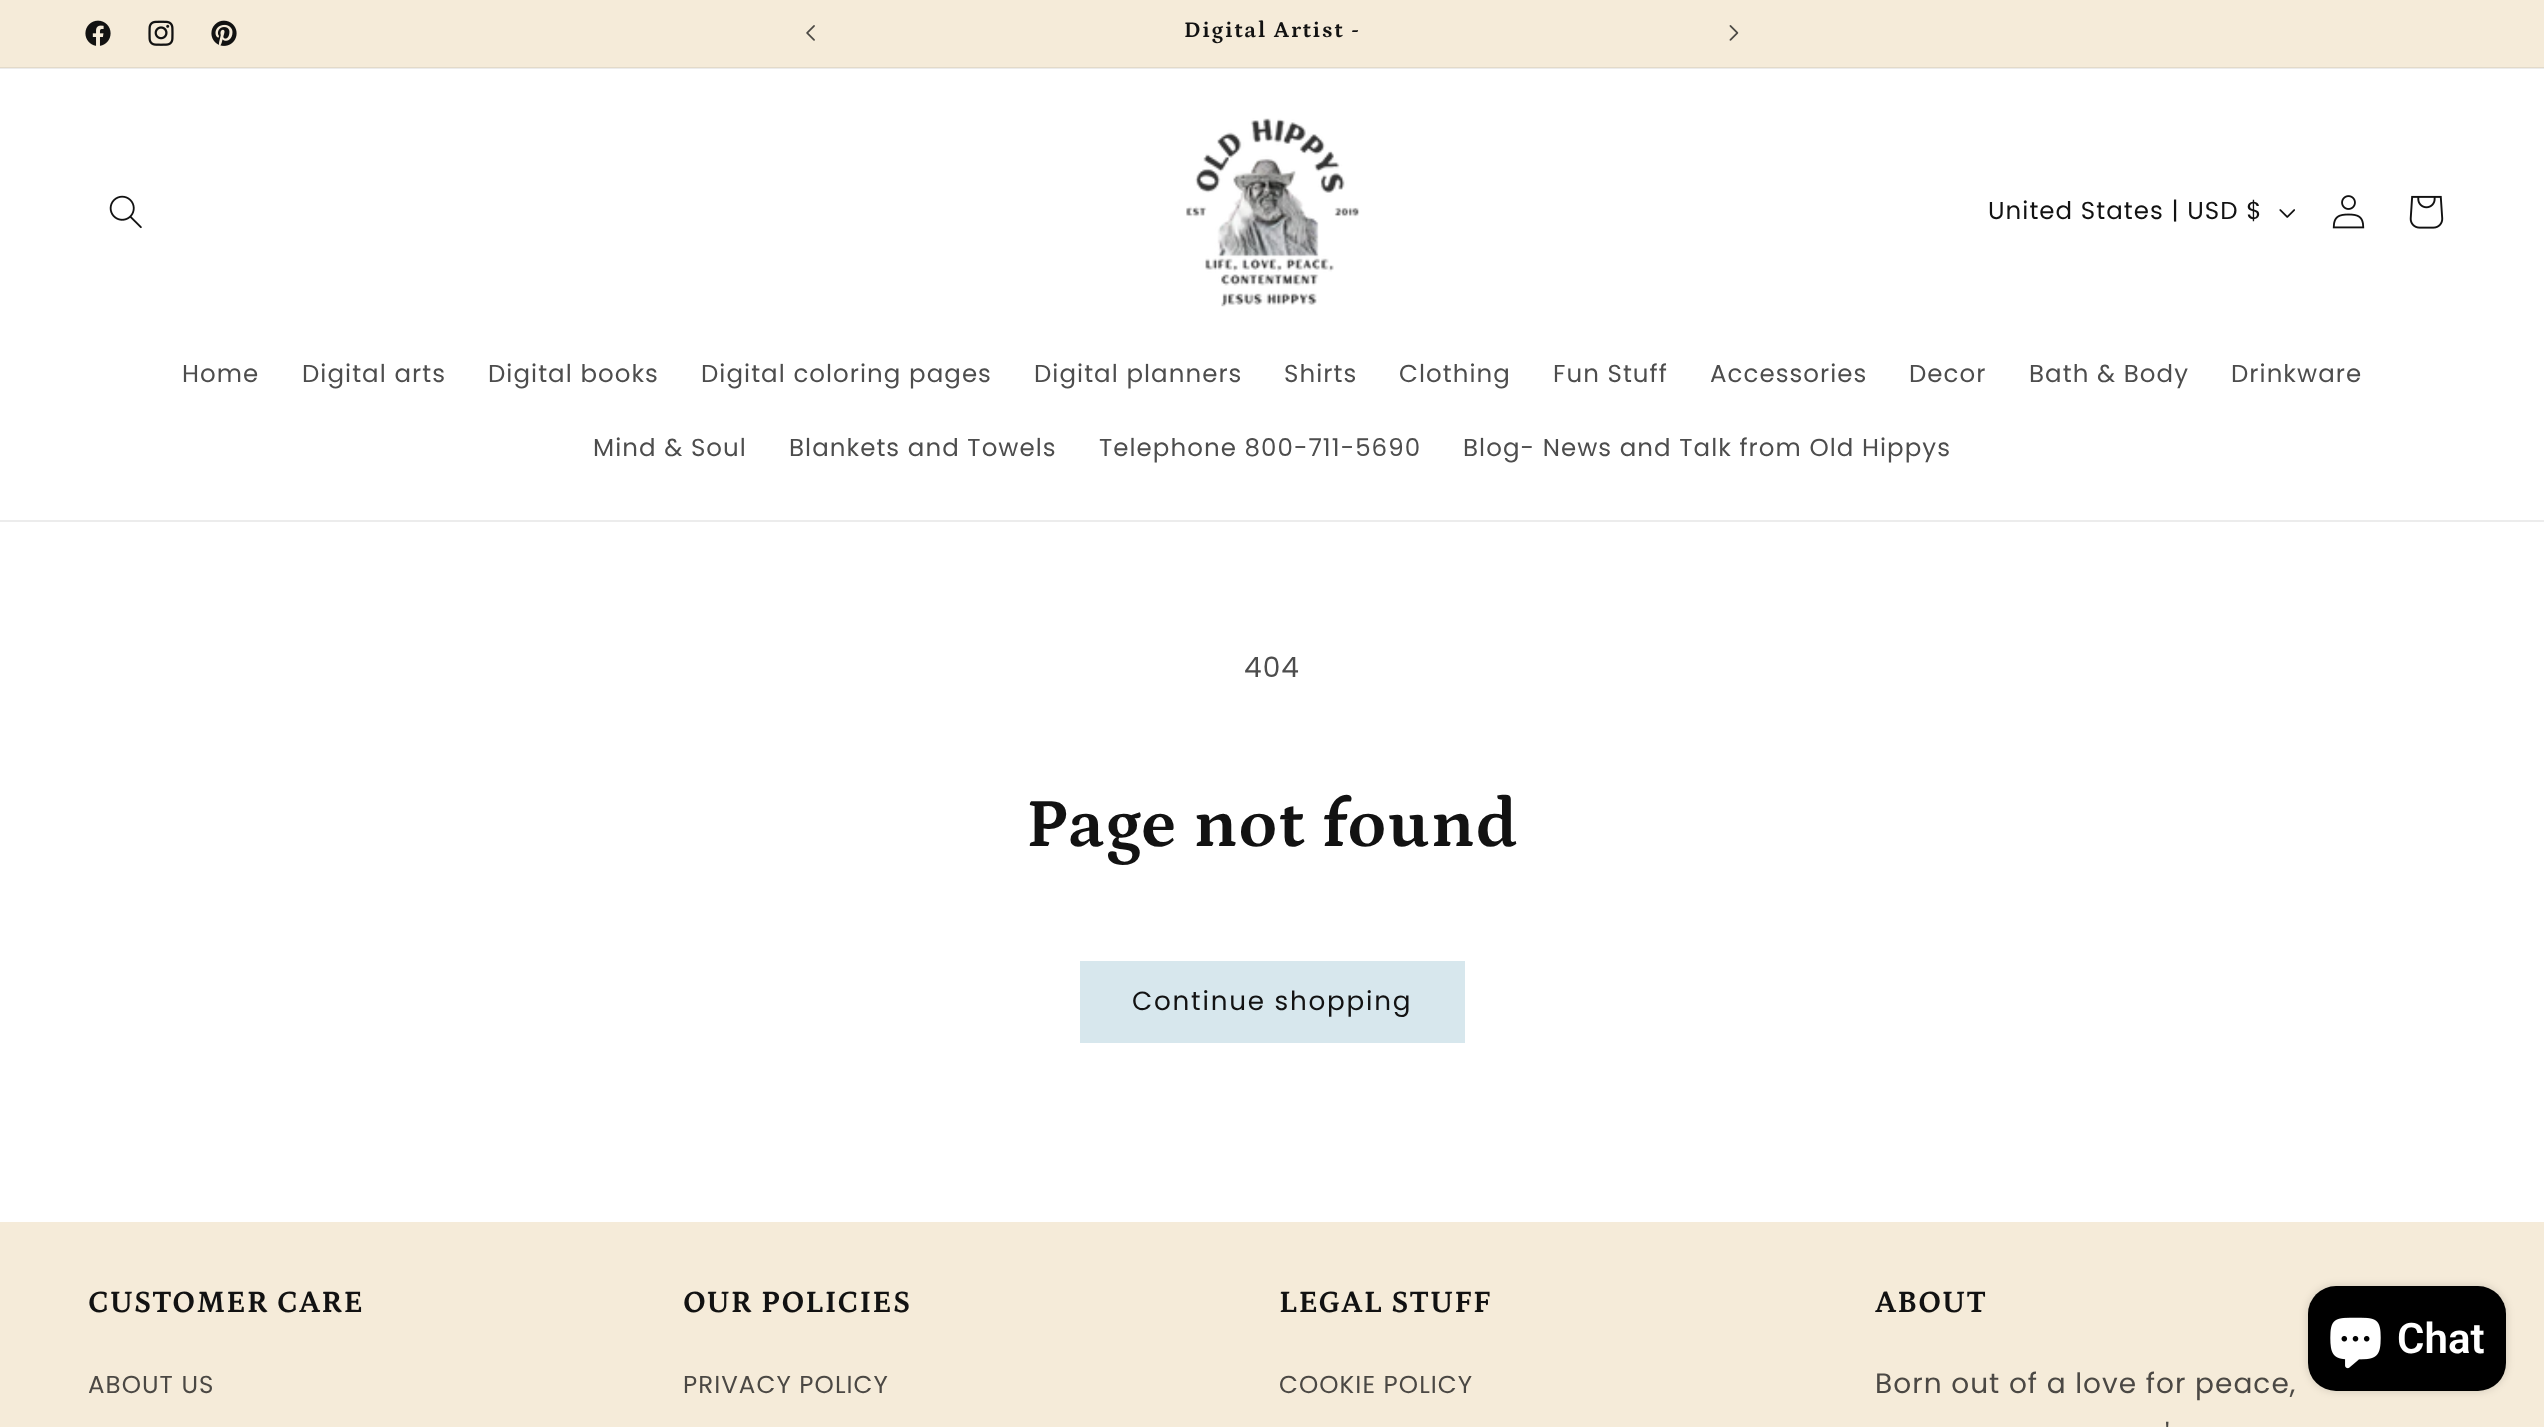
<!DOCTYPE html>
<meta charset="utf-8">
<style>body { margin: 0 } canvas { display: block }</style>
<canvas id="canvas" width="2544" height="1427"></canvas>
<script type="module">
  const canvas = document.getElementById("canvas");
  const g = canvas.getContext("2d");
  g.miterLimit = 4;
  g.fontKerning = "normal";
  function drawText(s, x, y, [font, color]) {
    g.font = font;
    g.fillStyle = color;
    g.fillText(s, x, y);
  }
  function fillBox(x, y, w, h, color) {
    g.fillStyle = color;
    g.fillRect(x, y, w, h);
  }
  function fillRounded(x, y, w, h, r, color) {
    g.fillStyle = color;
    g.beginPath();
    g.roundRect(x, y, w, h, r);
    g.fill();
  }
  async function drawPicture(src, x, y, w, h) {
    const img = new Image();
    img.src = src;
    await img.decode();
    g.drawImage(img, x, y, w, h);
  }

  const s1 = ["bold 22.75px Petrona", "#121212"];
  const s2 = ["24.5px Poppins", "#121212"];
  const s3 = ["24.5px Poppins", "#4D4D4D"];
  const s4 = ["28px Poppins", "#4D4D4D"];
  const s5 = ["bold 70px Petrona", "#121212"];
  const s6 = ["26.25px Poppins", "#121212"];
  const s7 = ["bold 31.5px Petrona", "#121212"];
  const s8 = ["24.5px Poppins", "#4B4844"];
  const s9 = ["28px Poppins", "#4B4844"];
  const s10 = ["600 42px Roboto", "#FFFFFF"];

  fillBox(0, 0, 2544, 1427, "#FFFFFF");
  fillBox(0, 68, 2544, 1, "#ECECEC");
  fillBox(0, 0, 2544, 67, "#F5EBD9");
  fillBox(0, 67, 2544, 1, "#E3DAC9");
  await drawPicture("pic1.png", 85, 20, 26, 26);
  await drawPicture("pic2.png", 148, 20, 26, 26);
  await drawPicture("pic3.png", 211, 20, 26, 26);
  await drawPicture("pic4.png", 806, 25, 9, 16);
  g.letterSpacing = "1.75px";
  drawText("Digital Artist -", 1184, 37, s1);
  await drawPicture("pic5.png", 1729, 25, 10, 16);
  fillBox(0, 520, 2544, 2, "#ECECEC");
  await drawPicture("pic6.png", 109, 195, 33, 34);
  await drawPicture("pic7.png", 1186, 118, 174, 189);
  g.letterSpacing = "1.05px";
  drawText("United States | USD $", 1988, 219, s2);
  await drawPicture("pic8.png", 2279, 209, 16, 9);
  await drawPicture("pic9.png", 2332, 195, 33, 34);
  await drawPicture("pic10.png", 2409, 195, 35, 34);
  drawText("Home", 182, 382, s3);
  drawText("Digital arts", 302, 382, s3);
  drawText("Digital books", 488, 382, s3);
  drawText("Digital coloring pages", 701, 382, s3);
  drawText("Digital planners", 1034, 382, s3);
  drawText("Shirts", 1284, 382, s3);
  drawText("Clothing", 1399, 382, s3);
  drawText("Fun Stuff", 1553, 382, s3);
  drawText("Accessories", 1710, 382, s3);
  drawText("Decor", 1909, 382, s3);
  drawText("Bath & Body", 2029, 382, s3);
  drawText("Drinkware", 2231, 382, s3);
  drawText("Mind & Soul", 593, 456, s3);
  drawText("Blankets and Towels", 789, 456, s3);
  drawText("Telephone 800-711-5690", 1099, 456, s3);
  drawText("Blog- News and Talk from Old Hippys", 1463, 456, s3);
  drawText("404", 1244, 677, s4);
  drawText("Page not found", 1026, 846, s5);
  fillBox(1080, 961, 385, 82, "#D7E7ED");
  g.letterSpacing = "1.75px";
  drawText("Continue shopping", 1132, 1010, s6);
  fillBox(0, 1222, 2544, 205, "#F5EBD9");
  g.letterSpacing = "1.05px";
  drawText("CUSTOMER CARE", 88, 1312, s7);
  drawText("ABOUT US", 88, 1393, s8);
  drawText("OUR POLICIES", 683, 1312, s7);
  drawText("PRIVACY POLICY", 683, 1393, s8);
  drawText("LEGAL STUFF", 1279, 1312, s7);
  drawText("COOKIE POLICY", 1279, 1393, s8);
  drawText("ABOUT", 1875, 1312, s7);
  drawText("Born out of a love for peace,", 1875, 1393, s9);
  drawText("'", 2165, 1444, s9);
  g.fillStyle = "rgba(0, 0, 0, 0.15)";
  g.filter = "blur(4.5px)";
  g.beginPath();
  g.roundRect(2308, 1286, 198, 105, 28);
  g.fill();
  g.filter = "none";
  fillRounded(2308, 1286, 198, 105, 28, "#000000");
  await drawPicture("pic11.png", 2330, 1317, 51, 52);
  g.letterSpacing = "0px";
  drawText("Chat", 2397, 1353, s10);
</script>
